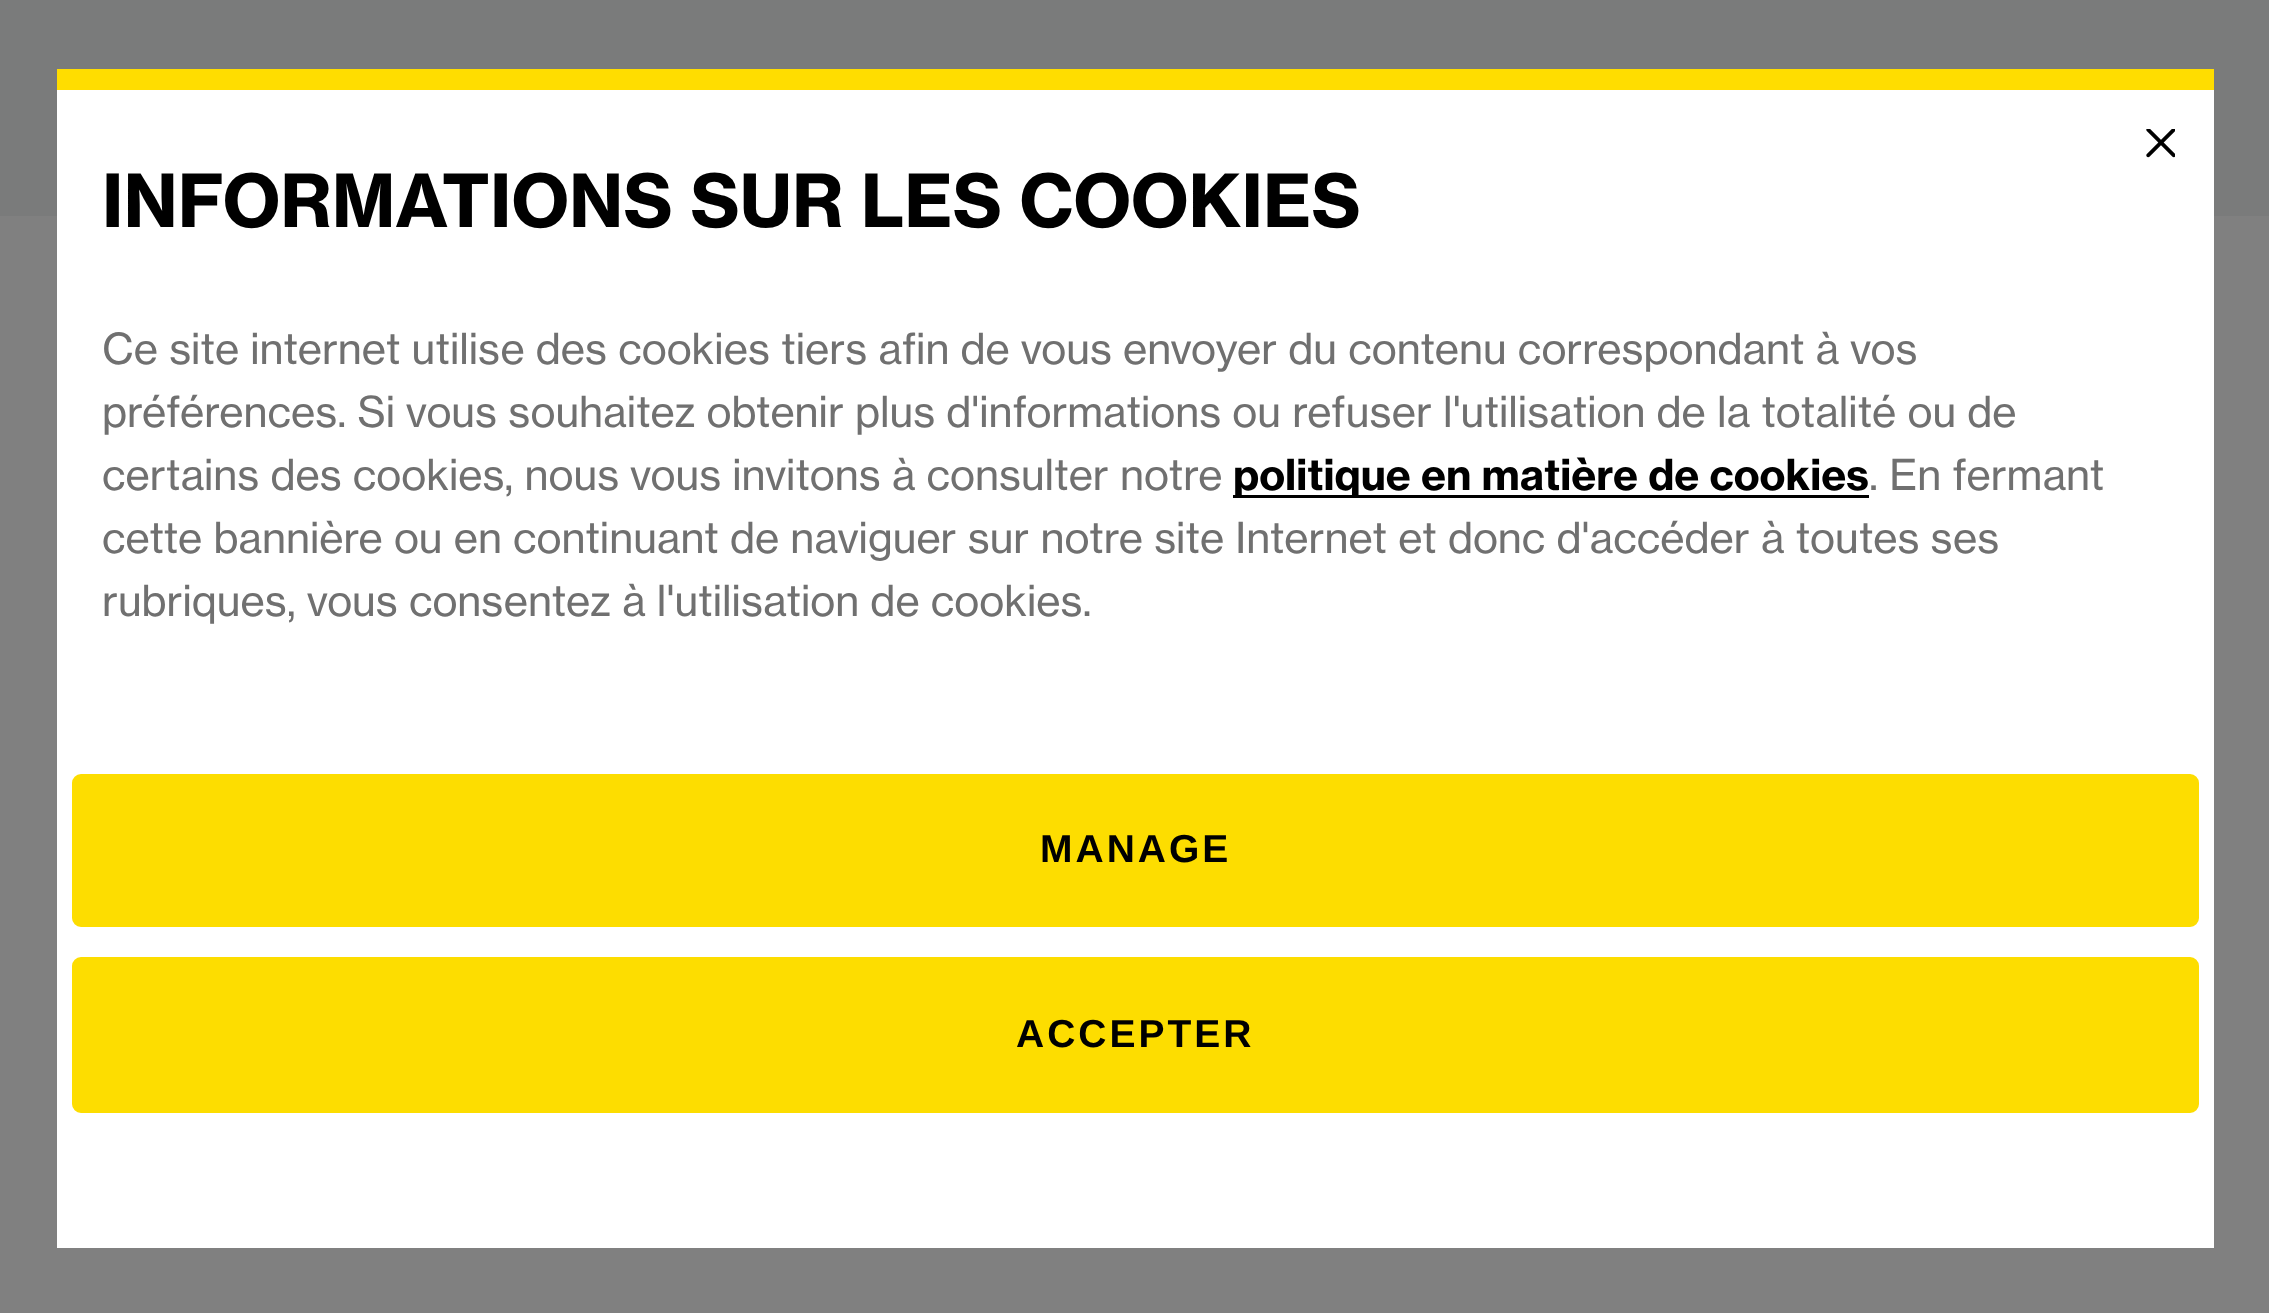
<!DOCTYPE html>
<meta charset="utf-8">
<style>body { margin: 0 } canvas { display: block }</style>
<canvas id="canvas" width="2269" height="1313"></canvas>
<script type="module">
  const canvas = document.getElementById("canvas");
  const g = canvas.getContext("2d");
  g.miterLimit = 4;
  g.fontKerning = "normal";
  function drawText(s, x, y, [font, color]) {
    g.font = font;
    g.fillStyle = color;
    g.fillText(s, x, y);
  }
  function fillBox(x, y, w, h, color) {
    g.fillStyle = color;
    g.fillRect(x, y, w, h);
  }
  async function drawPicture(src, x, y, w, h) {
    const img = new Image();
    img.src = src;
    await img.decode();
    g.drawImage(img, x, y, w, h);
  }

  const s1 = ["bold 72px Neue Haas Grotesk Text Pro", "#000000"];
  const s2 = ["42px Neue Haas Grotesk Text Pro", "#707070"];
  const s3 = ["bold 42px Neue Haas Grotesk Text Pro", "#000000"];
  const s4 = ["bold 39px Liberation Sans", "#000000"];

  fillBox(0, 0, 2269, 1313, "#808080");
  fillBox(0, 0, 2269, 216, "#7A7B7B");
  fillBox(57, 90, 2157, 1158, "#FFFFFF");
  fillBox(57, 69, 2157, 21, "#FFDD00");
  await drawPicture("pic1.png", 2146, 129, 29, 29);
  drawText("INFORMATIONS SUR LES COOKIES", 102, 227, s1);
  drawText("Ce site internet utilise des cookies tiers afin de vous envoyer du contenu correspondant à vos", 102, 364, s2);
  drawText("préférences. Si vous souhaitez obtenir plus d'informations ou refuser l'utilisation de la totalité ou de", 102, 427, s2);
  drawText("certains des cookies, nous vous invitons à consulter notre", 102, 490, s2);
  fillBox(1233, 495, 636, 3, "#000000");
  drawText("politique en matière de cookies", 1233, 490, s3);
  drawText(". En fermant", 1869, 490, s2);
  drawText("cette bannière ou en continuant de naviguer sur notre site Internet et donc d'accéder à toutes ses", 102, 553, s2);
  drawText("rubriques, vous consentez à l'utilisation de cookies.", 102, 616, s2);
  g.fillStyle = "#FDDD00";
  g.beginPath();
  g.roundRect(73.5, 775.5, 2124, 150, 7.5);
  g.fill();
  g.strokeStyle = "#FDDD00";
  g.lineWidth = 3;
  g.stroke();
  g.letterSpacing = "3px";
  drawText("MANAGE", 1040, 862, s4);
  g.fillStyle = "#FDDD00";
  g.beginPath();
  g.roundRect(73.5, 958.5, 2124, 153, 7.5);
  g.fill();
  g.stroke();
  drawText("ACCEPTER", 1016, 1047, s4);
</script>
